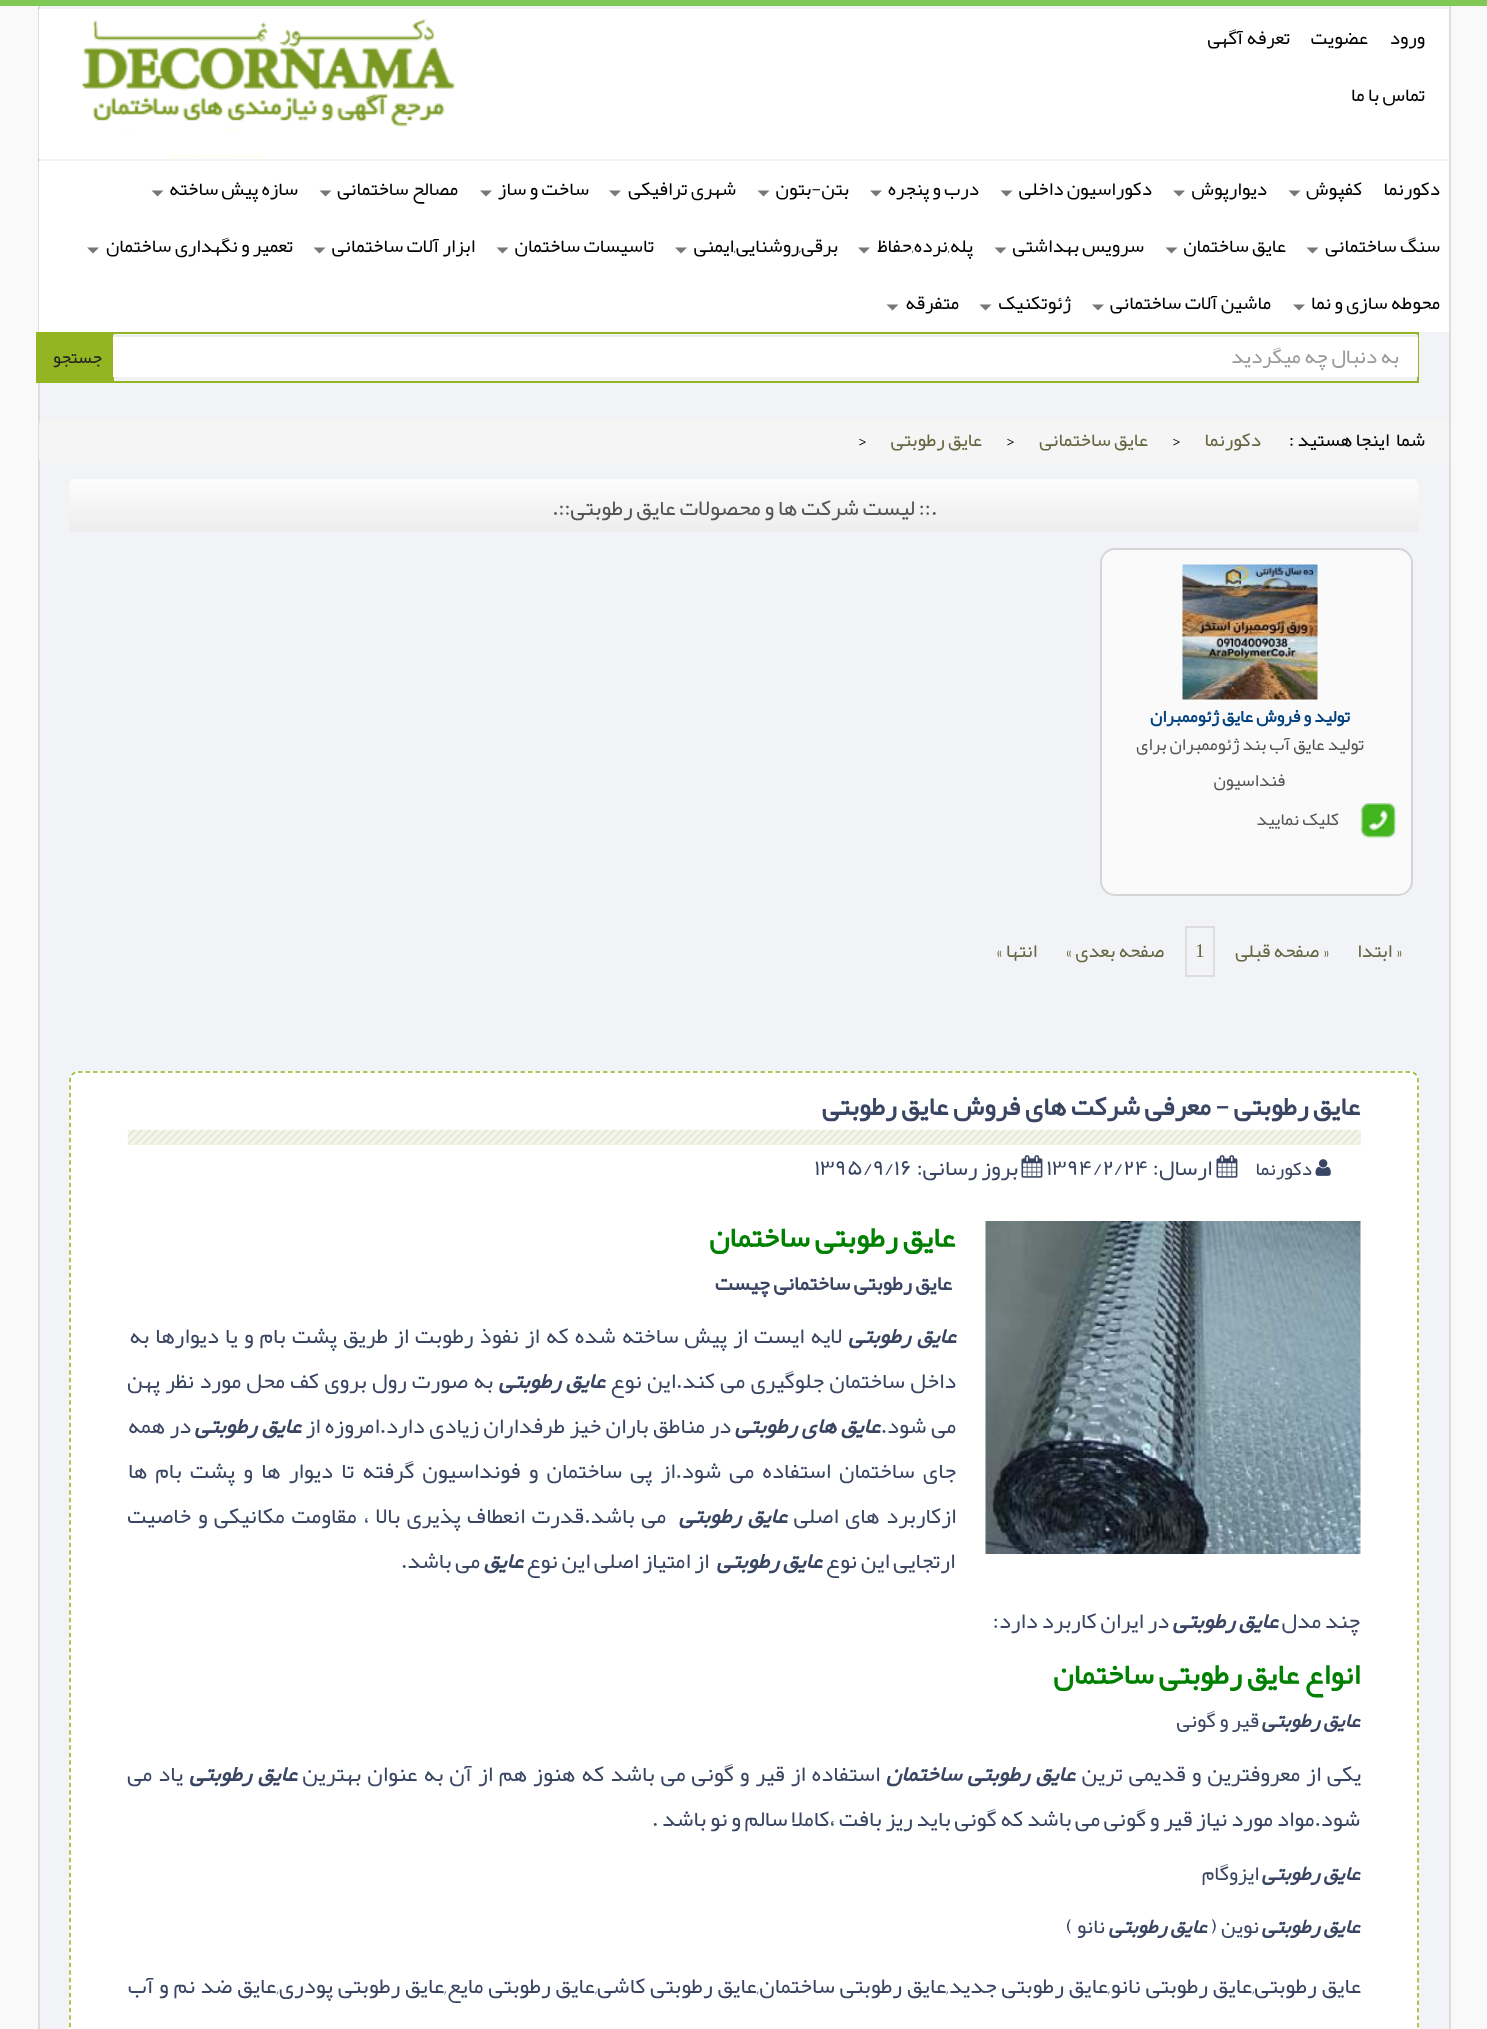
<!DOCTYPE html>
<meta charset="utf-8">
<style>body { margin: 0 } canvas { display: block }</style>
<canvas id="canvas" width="1487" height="2029"></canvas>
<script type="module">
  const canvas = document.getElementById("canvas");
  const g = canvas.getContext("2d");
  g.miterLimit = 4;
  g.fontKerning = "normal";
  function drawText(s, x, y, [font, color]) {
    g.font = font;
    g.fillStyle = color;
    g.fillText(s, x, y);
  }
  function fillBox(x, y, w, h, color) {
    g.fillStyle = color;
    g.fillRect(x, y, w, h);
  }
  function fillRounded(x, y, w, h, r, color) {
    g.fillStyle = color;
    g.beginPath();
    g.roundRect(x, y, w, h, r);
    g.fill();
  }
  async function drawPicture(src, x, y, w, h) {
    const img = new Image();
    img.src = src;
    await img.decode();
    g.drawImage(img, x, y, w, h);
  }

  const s1 = ["19.5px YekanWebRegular", "#000000"];
  const s2 = ["21px YekanWebRegular", "#999999"];
  const s3 = ["18px YekanWebRegular", "#222222"];
  const s4 = ["19.5px YekanWebRegular", "#666642"];
  const s5 = ["22.5px YekanWebRegular", "#555555"];
  const s6 = ["bold 17.8px YekanWebRegular", "#034381"];
  const s7 = ["18px YekanWebRegular", "#555555"];
  const s8 = ["19.5px Liberation Serif", "#666642"];
  const s9 = ["bold 27px YekanWebRegular", "#394562"];
  const s10 = ["19.5px YekanWebRegular", "#394562"];
  const s11 = ["22.5px YekanWebRegular", "#394562"];
  const s12 = ["bold 30px YekanWebRegular", "#008000"];
  const s13 = ["bold 21px YekanWebRegular", "#394562"];
  const s14 = ["italic bold 22.5px YekanWebRegular", "#394562"];
  const s15 = ["italic bold 21px YekanWebRegular", "#394562"];
  const s16 = ["21px YekanWebRegular", "#394562"];

  fillBox(0, 0, 1487, 2029, "#F9F9F9");
  fillBox(0, 0, 1487, 6, "#80C956");
  fillBox(40, 6, 1409, 155, "#F2F3F7");
  fillBox(1449, 6, 2, 2023, "#DDDDDD");
  fillBox(38, 6, 2, 326, "#DDDDDD");
  fillBox(39, 9, 1410, 150, "#FFFFFF");
  g.direction = "rtl";
  drawText("ورود", 1425, 44, s1);
  drawText("عضویت", 1368, 44, s1);
  drawText("تعرفه آگهی", 1290, 44, s1);
  drawText("تماس با ما", 1425, 101, s1);
  await drawPicture("pic1.png", 82, 19, 373, 140);
  fillBox(39, 161, 1410, 171, "#FFFFFF");
  drawText("دکورنما", 1440, 195, s1);
  drawText("کفپوش", 1362, 195, s1);
  g.fillStyle = "#777777";
  g.beginPath();
  g.moveTo(1288.5, 190.5);
  g.lineTo(1300.5, 190.5);
  g.lineTo(1294.5, 196.5);
  g.closePath();
  g.fill();
  drawText("دیوارپوش", 1267, 195, s1);
  g.fillStyle = "#777777";
  g.beginPath();
  g.moveTo(1173, 190.5);
  g.lineTo(1185, 190.5);
  g.lineTo(1179, 196.5);
  g.closePath();
  g.fill();
  drawText("دکوراسیون داخلی", 1152, 195, s1);
  g.fillStyle = "#777777";
  g.beginPath();
  g.moveTo(1000.5, 190.5);
  g.lineTo(1012.5, 190.5);
  g.lineTo(1006.5, 196.5);
  g.closePath();
  g.fill();
  drawText("درب و پنجره", 979, 195, s1);
  g.fillStyle = "#777777";
  g.beginPath();
  g.moveTo(870, 190.5);
  g.lineTo(882, 190.5);
  g.lineTo(876, 196.5);
  g.closePath();
  g.fill();
  drawText("بتن-بتون", 849, 195, s1);
  g.fillStyle = "#777777";
  g.beginPath();
  g.moveTo(757.5, 190.5);
  g.lineTo(769.5, 190.5);
  g.lineTo(763.5, 196.5);
  g.closePath();
  g.fill();
  drawText("شهری ترافیکی", 736, 195, s1);
  g.fillStyle = "#777777";
  g.beginPath();
  g.moveTo(609, 190.5);
  g.lineTo(621, 190.5);
  g.lineTo(615, 196.5);
  g.closePath();
  g.fill();
  drawText("ساخت و ساز", 589, 195, s1);
  g.fillStyle = "#777777";
  g.beginPath();
  g.moveTo(480, 190.5);
  g.lineTo(492, 190.5);
  g.lineTo(486, 196.5);
  g.closePath();
  g.fill();
  drawText("مصالح ساختمانی", 458, 195, s1);
  g.fillStyle = "#777777";
  g.beginPath();
  g.moveTo(319.5, 190.5);
  g.lineTo(331.5, 190.5);
  g.lineTo(325.5, 196.5);
  g.closePath();
  g.fill();
  drawText("سازه پیش ساخته", 298, 195, s1);
  g.fillStyle = "#777777";
  g.beginPath();
  g.moveTo(151.5, 190.5);
  g.lineTo(163.5, 190.5);
  g.lineTo(157.5, 196.5);
  g.closePath();
  g.fill();
  drawText("سنگ ساختمانی", 1440, 252, s1);
  g.fillStyle = "#777777";
  g.beginPath();
  g.moveTo(1306.5, 247.5);
  g.lineTo(1318.5, 247.5);
  g.lineTo(1312.5, 253.5);
  g.closePath();
  g.fill();
  drawText("عایق ساختمان", 1286, 252, s1);
  g.fillStyle = "#777777";
  g.beginPath();
  g.moveTo(1165.5, 247.5);
  g.lineTo(1177.5, 247.5);
  g.lineTo(1171.5, 253.5);
  g.closePath();
  g.fill();
  drawText("سرویس بهداشتی", 1144, 252, s1);
  g.fillStyle = "#777777";
  g.beginPath();
  g.moveTo(994.5, 247.5);
  g.lineTo(1006.5, 247.5);
  g.lineTo(1000.5, 253.5);
  g.closePath();
  g.fill();
  drawText("پله,نرده,حفاظ", 973, 252, s1);
  g.fillStyle = "#777777";
  g.beginPath();
  g.moveTo(858, 247.5);
  g.lineTo(870, 247.5);
  g.lineTo(864, 253.5);
  g.closePath();
  g.fill();
  drawText("برقی,روشنایی,ایمنی", 838, 252, s1);
  g.fillStyle = "#777777";
  g.beginPath();
  g.moveTo(675, 247.5);
  g.lineTo(687, 247.5);
  g.lineTo(681, 253.5);
  g.closePath();
  g.fill();
  drawText("تاسیسات ساختمان", 654, 252, s1);
  g.fillStyle = "#777777";
  g.beginPath();
  g.moveTo(496.5, 247.5);
  g.lineTo(508.5, 247.5);
  g.lineTo(502.5, 253.5);
  g.closePath();
  g.fill();
  drawText("ابزار آلات ساختمانی", 475, 252, s1);
  g.fillStyle = "#777777";
  g.beginPath();
  g.moveTo(313.5, 247.5);
  g.lineTo(325.5, 247.5);
  g.lineTo(319.5, 253.5);
  g.closePath();
  g.fill();
  drawText("تعمیر و نگهداری ساختمان", 293, 252, s1);
  g.fillStyle = "#777777";
  g.beginPath();
  g.moveTo(87, 247.5);
  g.lineTo(99, 247.5);
  g.lineTo(93, 253.5);
  g.closePath();
  g.fill();
  drawText("محوطه سازی و نما", 1440, 309, s1);
  g.fillStyle = "#777777";
  g.beginPath();
  g.moveTo(1293, 304.5);
  g.lineTo(1305, 304.5);
  g.lineTo(1299, 310.5);
  g.closePath();
  g.fill();
  drawText("ماشین آلات ساختمانی", 1271, 309, s1);
  g.fillStyle = "#777777";
  g.beginPath();
  g.moveTo(1092, 304.5);
  g.lineTo(1104, 304.5);
  g.lineTo(1098, 310.5);
  g.closePath();
  g.fill();
  drawText("ژئوتکنیک", 1071, 309, s1);
  g.fillStyle = "#777777";
  g.beginPath();
  g.moveTo(979.5, 304.5);
  g.lineTo(991.5, 304.5);
  g.lineTo(985.5, 310.5);
  g.closePath();
  g.fill();
  drawText("متفرقه", 959, 309, s1);
  g.fillStyle = "#777777";
  g.beginPath();
  g.moveTo(886.5, 304.5);
  g.lineTo(898.5, 304.5);
  g.lineTo(892.5, 310.5);
  g.closePath();
  g.fill();
  fillBox(40, 332, 1409, 1697, "#F2F3F7");
  fillBox(38, 383, 2, 1646, "#DDDDDD");
  g.strokeStyle = "#93B521";
  g.lineWidth = 2;
  g.strokeRect(37, 333, 1381, 49);
  fillBox(38, 334, 76, 47, "#93B521");
  fillBox(113, 337, 1305, 40, "#FFFFFF");
  fillBox(113, 335, 1305, 2, "#ECECEC");
  drawText("به دنبال چه میگردید", 1399, 363, s2);
  drawText("جستجو", 102, 363, s3);
  fillRounded(39, 419, 1410, 45, 6, "#F5F5F5");
  drawText("شما  اینجا هستید :", 1425, 446, s1);
  drawText("دکورنما", 1261, 446, s4);
  g.direction = "ltr";
  drawText(">", 1172, 446, s1);
  g.direction = "rtl";
  drawText("عایق ساختمانی", 1148, 446, s4);
  g.direction = "ltr";
  drawText(">", 1006, 446, s1);
  g.direction = "rtl";
  drawText("عایق رطوبتی", 982, 446, s4);
  g.direction = "ltr";
  drawText(">", 858, 446, s1);
  await drawPicture("pic2.png", 69, 479, 1350, 53);
  g.direction = "rtl";
  drawText(".:: لیست شرکت ها و محصولات عایق رطوبتی::.", 937, 515, s5);
  g.fillStyle = "#FAFAFA";
  g.beginPath();
  g.roundRect(1101, 549, 311, 346, 14);
  g.fill();
  g.strokeStyle = "#D5D5D5";
  g.stroke();
  await drawPicture("pic3.png", 1182, 564, 136, 136);
  drawText("تولید و فروش عایق ژئوممبران", 1350, 722, s6);
  drawText("تولید عایق آب بند ژئوممبران برای", 1364, 750, s7);
  drawText("فنداسیون", 1285, 786, s7);
  await drawPicture("pic4.png", 1360, 803, 36, 35);
  drawText("کلیک نمایید", 1339, 825, s7);
  drawText("« ابتدا", 1402, 957, s4);
  drawText("« صفحه قبلی", 1329, 957, s4);
  g.strokeStyle = "#DDDDDD";
  g.strokeRect(1186, 927, 28, 49);
  g.direction = "ltr";
  drawText("1", 1195, 957, s8);
  g.direction = "rtl";
  drawText("صفحه بعدی »", 1164, 957, s4);
  drawText("انتها »", 1037, 957, s4);
  fillRounded(69, 1071, 1350, 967, 9, "#FFFFFF");
  g.beginPath();
  g.moveTo(78, 1072);
  g.lineTo(1410, 1072);
  g.bezierCurveTo(1414.5, 1072, 1418, 1075.5, 1418, 1080);
  g.lineTo(1418, 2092.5);
  g.bezierCurveTo(1418, 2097, 1414.5, 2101, 1410, 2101);
  g.lineTo(78, 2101);
  g.bezierCurveTo(73.5, 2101, 70, 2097, 70, 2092.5);
  g.lineTo(70, 1080);
  g.bezierCurveTo(70, 1075.5, 73.5, 1072, 78, 1072);
  g.closePath();
  g.strokeStyle = "#93B521";
  g.lineWidth = 1.5;
  g.setLineDash([4.5, 3]);
  g.stroke();
  drawText("عایق رطوبتی - معرفی شرکت های فروش عایق رطوبتی", 1360, 1115, s9);
  fillBox(128, 1130, 1233, 15, "#F4F7E7");
  await drawPicture("pic5.png", 127, 1129, 1234, 16);
  await drawPicture("pic6.png", 1315, 1159, 16, 17);
  drawText("دکورنما", 1312, 1175, s10);
  await drawPicture("pic7.png", 1216, 1155, 22, 23);
  drawText("ارسال:", 1212, 1175, s11);
  g.direction = "ltr";
  drawText("۱۳۹۴/۲/۲۴", 1046, 1175, s11);
  await drawPicture("pic7.png", 1021, 1155, 22, 23);
  g.direction = "rtl";
  drawText("بروز رسانی:", 1018, 1175, s11);
  g.direction = "ltr";
  drawText("۱۳۹۵/۹/۱۶", 814, 1175, s11);
  await drawPicture("pic8.png", 985, 1221, 376, 333);
  g.direction = "rtl";
  drawText("عایق رطوبتی ساختمان", 955, 1247, s12);
  drawText("عایق رطوبتی ساختمانی چیست", 952, 1290, s13);
  g.wordSpacing = "2.25px";
  drawText("عایق رطوبتی", 956, 1343, s14);
  drawText("لایه ایست از پیش ساخته شده که از نفوذ رطوبت از طریق پشت بام و یا دیوارها به", 842, 1343, s11);
  g.wordSpacing = "1.5px";
  drawText("داخل ساختمان جلوگیری می کند.این نوع", 956, 1388, s11);
  g.wordSpacing = "1px";
  drawText("عایق رطوبتی", 605, 1388, s14);
  g.wordSpacing = "1.5px";
  drawText("به صورت رول بروی کف محل مورد نظر پهن", 493, 1388, s11);
  g.wordSpacing = "1px";
  drawText("می شود.", 956, 1433, s11);
  g.wordSpacing = "0.75px";
  drawText("عایق های رطوبتی", 880, 1433, s14);
  drawText("در مناطق باران خیز طرفداران زیادی دارد.امروزه از", 731, 1433, s11);
  g.wordSpacing = "1px";
  drawText("عایق رطوبتی", 301, 1433, s14);
  g.wordSpacing = "0.75px";
  drawText("در همه", 191, 1433, s11);
  g.wordSpacing = "4.4px";
  drawText("جای ساختمان استفاده می شود.از پی ساختمان و فونداسیون گرفته تا دیوار ها و پشت بام ها", 956, 1478, s11);
  g.wordSpacing = "2.75px";
  drawText("ازکاربرد های اصلی", 956, 1523, s11);
  drawText("عایق رطوبتی", 787, 1523, s14);
  drawText("می باشد.قدرت انعطاف پذیری بالا ، مقاومت مکانیکی و خاصیت", 666, 1523, s11);
  g.wordSpacing = "0px";
  drawText("ارتجایی این نوع", 955, 1568, s11);
  drawText("عایق رطوبتی", 822, 1568, s14);
  drawText("از امتیاز اصلی این نوع", 709, 1568, s11);
  drawText("عایق", 523, 1568, s14);
  drawText("می باشد.", 480, 1568, s11);
  drawText("چند مدل", 1360, 1628, s11);
  drawText("عایق رطوبتی", 1278, 1628, s14);
  drawText("در ایران کاربرد دارد:", 1169, 1628, s11);
  drawText("انواع عایق رطوبتی ساختمان", 1360, 1684, s12);
  drawText("عایق رطوبتی", 1360, 1727, s15);
  drawText("قیر و گونی", 1259, 1727, s16);
  g.wordSpacing = "2.25px";
  drawText("یکی از معروفترین و قدیمی ترین", 1361, 1781, s11);
  drawText("عایق رطوبتی ساختمان", 1075, 1781, s14);
  drawText("استفاده از قیر و گونی می باشد که هنوز هم از آن به عنوان بهترین", 880, 1781, s11);
  drawText("عایق رطوبتی", 297, 1781, s14);
  drawText("یاد می", 183, 1781, s11);
  g.wordSpacing = "0px";
  drawText("شود.مواد مورد نیاز قیر و گونی می باشد که گونی باید ریز بافت ،کاملا سالم و نو باشد .", 1360, 1826, s11);
  drawText("عایق رطوبتی", 1360, 1880, s15);
  drawText("ایزوگام", 1259, 1880, s16);
  drawText("عایق رطوبتی", 1360, 1933, s15);
  drawText("نوین (", 1259, 1933, s16);
  drawText("عایق رطوبتی", 1207, 1933, s15);
  drawText("نانو )", 1105, 1933, s16);
  g.wordSpacing = "1.25px";
  drawText("عایق رطوبتی,عایق رطوبتی نانو,عایق رطوبتی جدید,عایق رطوبتی ساختمان,عایق رطوبتی کاشی,عایق رطوبتی مایع,عایق رطوبتی پودری,عایق ضد نم و آب", 1361, 1993, s11);
</script>
